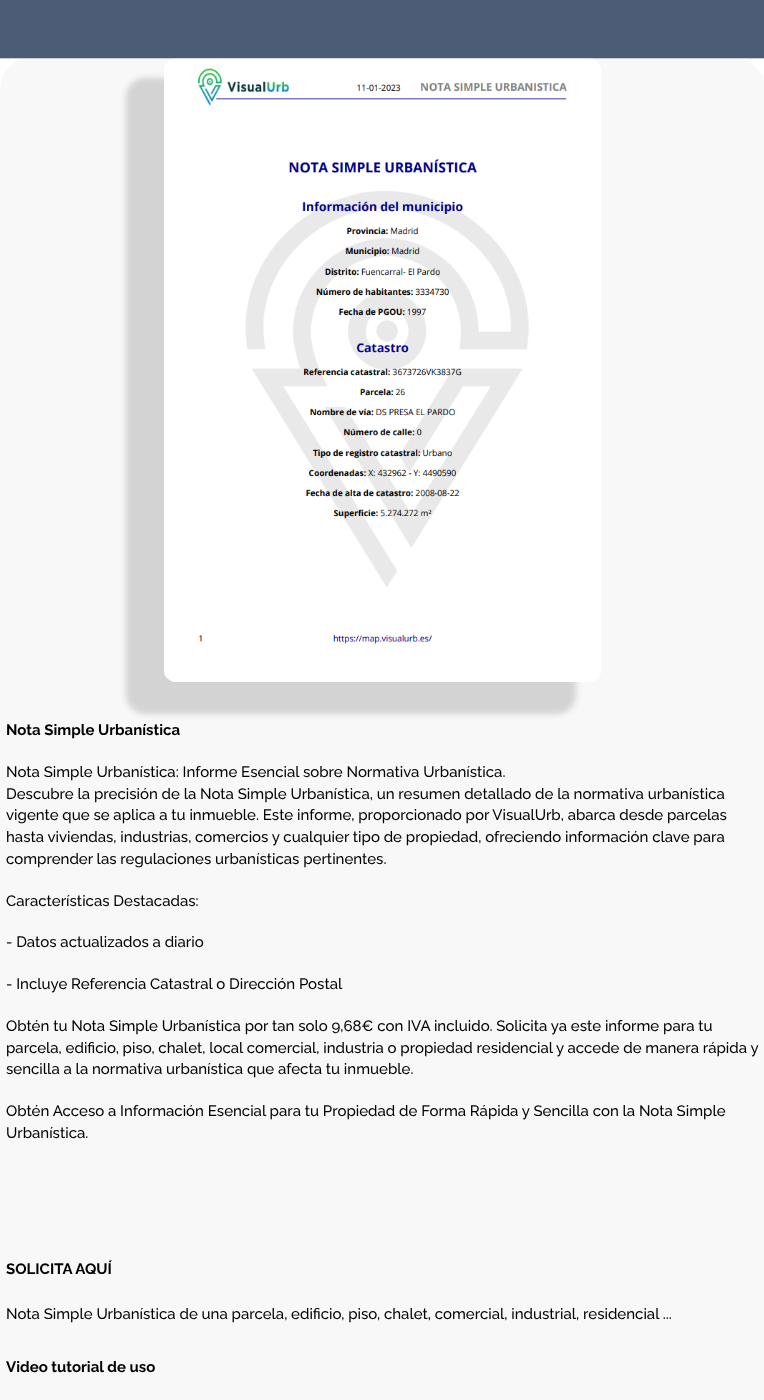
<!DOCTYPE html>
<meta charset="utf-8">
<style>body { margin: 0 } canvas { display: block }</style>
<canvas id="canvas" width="764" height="1400"></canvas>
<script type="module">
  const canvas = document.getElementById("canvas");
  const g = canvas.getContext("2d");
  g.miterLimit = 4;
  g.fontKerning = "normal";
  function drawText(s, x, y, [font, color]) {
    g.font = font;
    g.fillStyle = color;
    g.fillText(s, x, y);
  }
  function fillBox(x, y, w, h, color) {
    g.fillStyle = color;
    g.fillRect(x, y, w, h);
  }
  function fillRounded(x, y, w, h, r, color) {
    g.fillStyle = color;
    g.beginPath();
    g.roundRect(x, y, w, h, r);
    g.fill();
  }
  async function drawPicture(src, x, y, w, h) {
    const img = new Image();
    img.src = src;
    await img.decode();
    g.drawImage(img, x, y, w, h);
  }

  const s1 = ["bold 15px Raleway", "#000000"];
  const s2 = ["500 15px Raleway", "#000000"];

  fillBox(0, 0, 764, 1400, "#FFFFFF");
  fillBox(0, 0, 764, 58, "#4D5C76");
  fillRounded(0, 58, 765, 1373, 31, "#F8F8F8");
  fillBox(0, 58, 764, 1, "#CCCCCC");
  g.fillStyle = "rgba(0, 0, 0, 0.15)";
  g.filter = "blur(3px)";
  g.beginPath();
  g.roundRect(126, 78, 450, 636, 19);
  g.fill();
  g.filter = "none";
  await drawPicture("pic1.png", 164, 58, 437, 624);
  drawText("Nota Simple Urbanística", 6, 735, s1);
  drawText("Nota Simple Urbanística: Informe Esencial sobre Normativa Urbanística.", 6, 777, s2);
  drawText("Descubre la precisión de la Nota Simple Urbanística, un resumen detallado de la normativa urbanística", 6, 799, s2);
  drawText("vigente que se aplica a tu inmueble. Este informe, proporcionado por VisualUrb, abarca desde parcelas", 6, 820, s2);
  drawText("hasta viviendas, industrias, comercios y cualquier tipo de propiedad, ofreciendo información clave para", 6, 842, s2);
  drawText("comprender las regulaciones urbanísticas pertinentes.", 6, 864, s2);
  drawText("Características Destacadas:", 6, 906, s2);
  drawText("- Datos actualizados a diario", 6, 947, s2);
  drawText("- Incluye Referencia Catastral o Dirección Postal", 6, 989, s2);
  drawText("Obtén tu Nota Simple Urbanística por tan solo 9,68€ con IVA incluido. Solicita ya este informe para tu", 6, 1031, s2);
  drawText("parcela, edificio, piso, chalet, local comercial, industria o propiedad residencial y accede de manera rápida y", 6, 1053, s2);
  drawText("sencilla a la normativa urbanística que afecta tu inmueble.", 6, 1074, s2);
  drawText("Obtén Acceso a Información Esencial para tu Propiedad de Forma Rápida y Sencilla con la Nota Simple", 6, 1116, s2);
  drawText("Urbanística.", 6, 1138, s2);
  drawText("SOLICITA AQUÍ", 6, 1274, s1);
  drawText("Nota Simple Urbanística de una parcela, edificio, piso, chalet, comercial, industrial, residencial ...", 6, 1319, s2);
  drawText("Video tutorial de uso", 6, 1372, s1);
</script>
